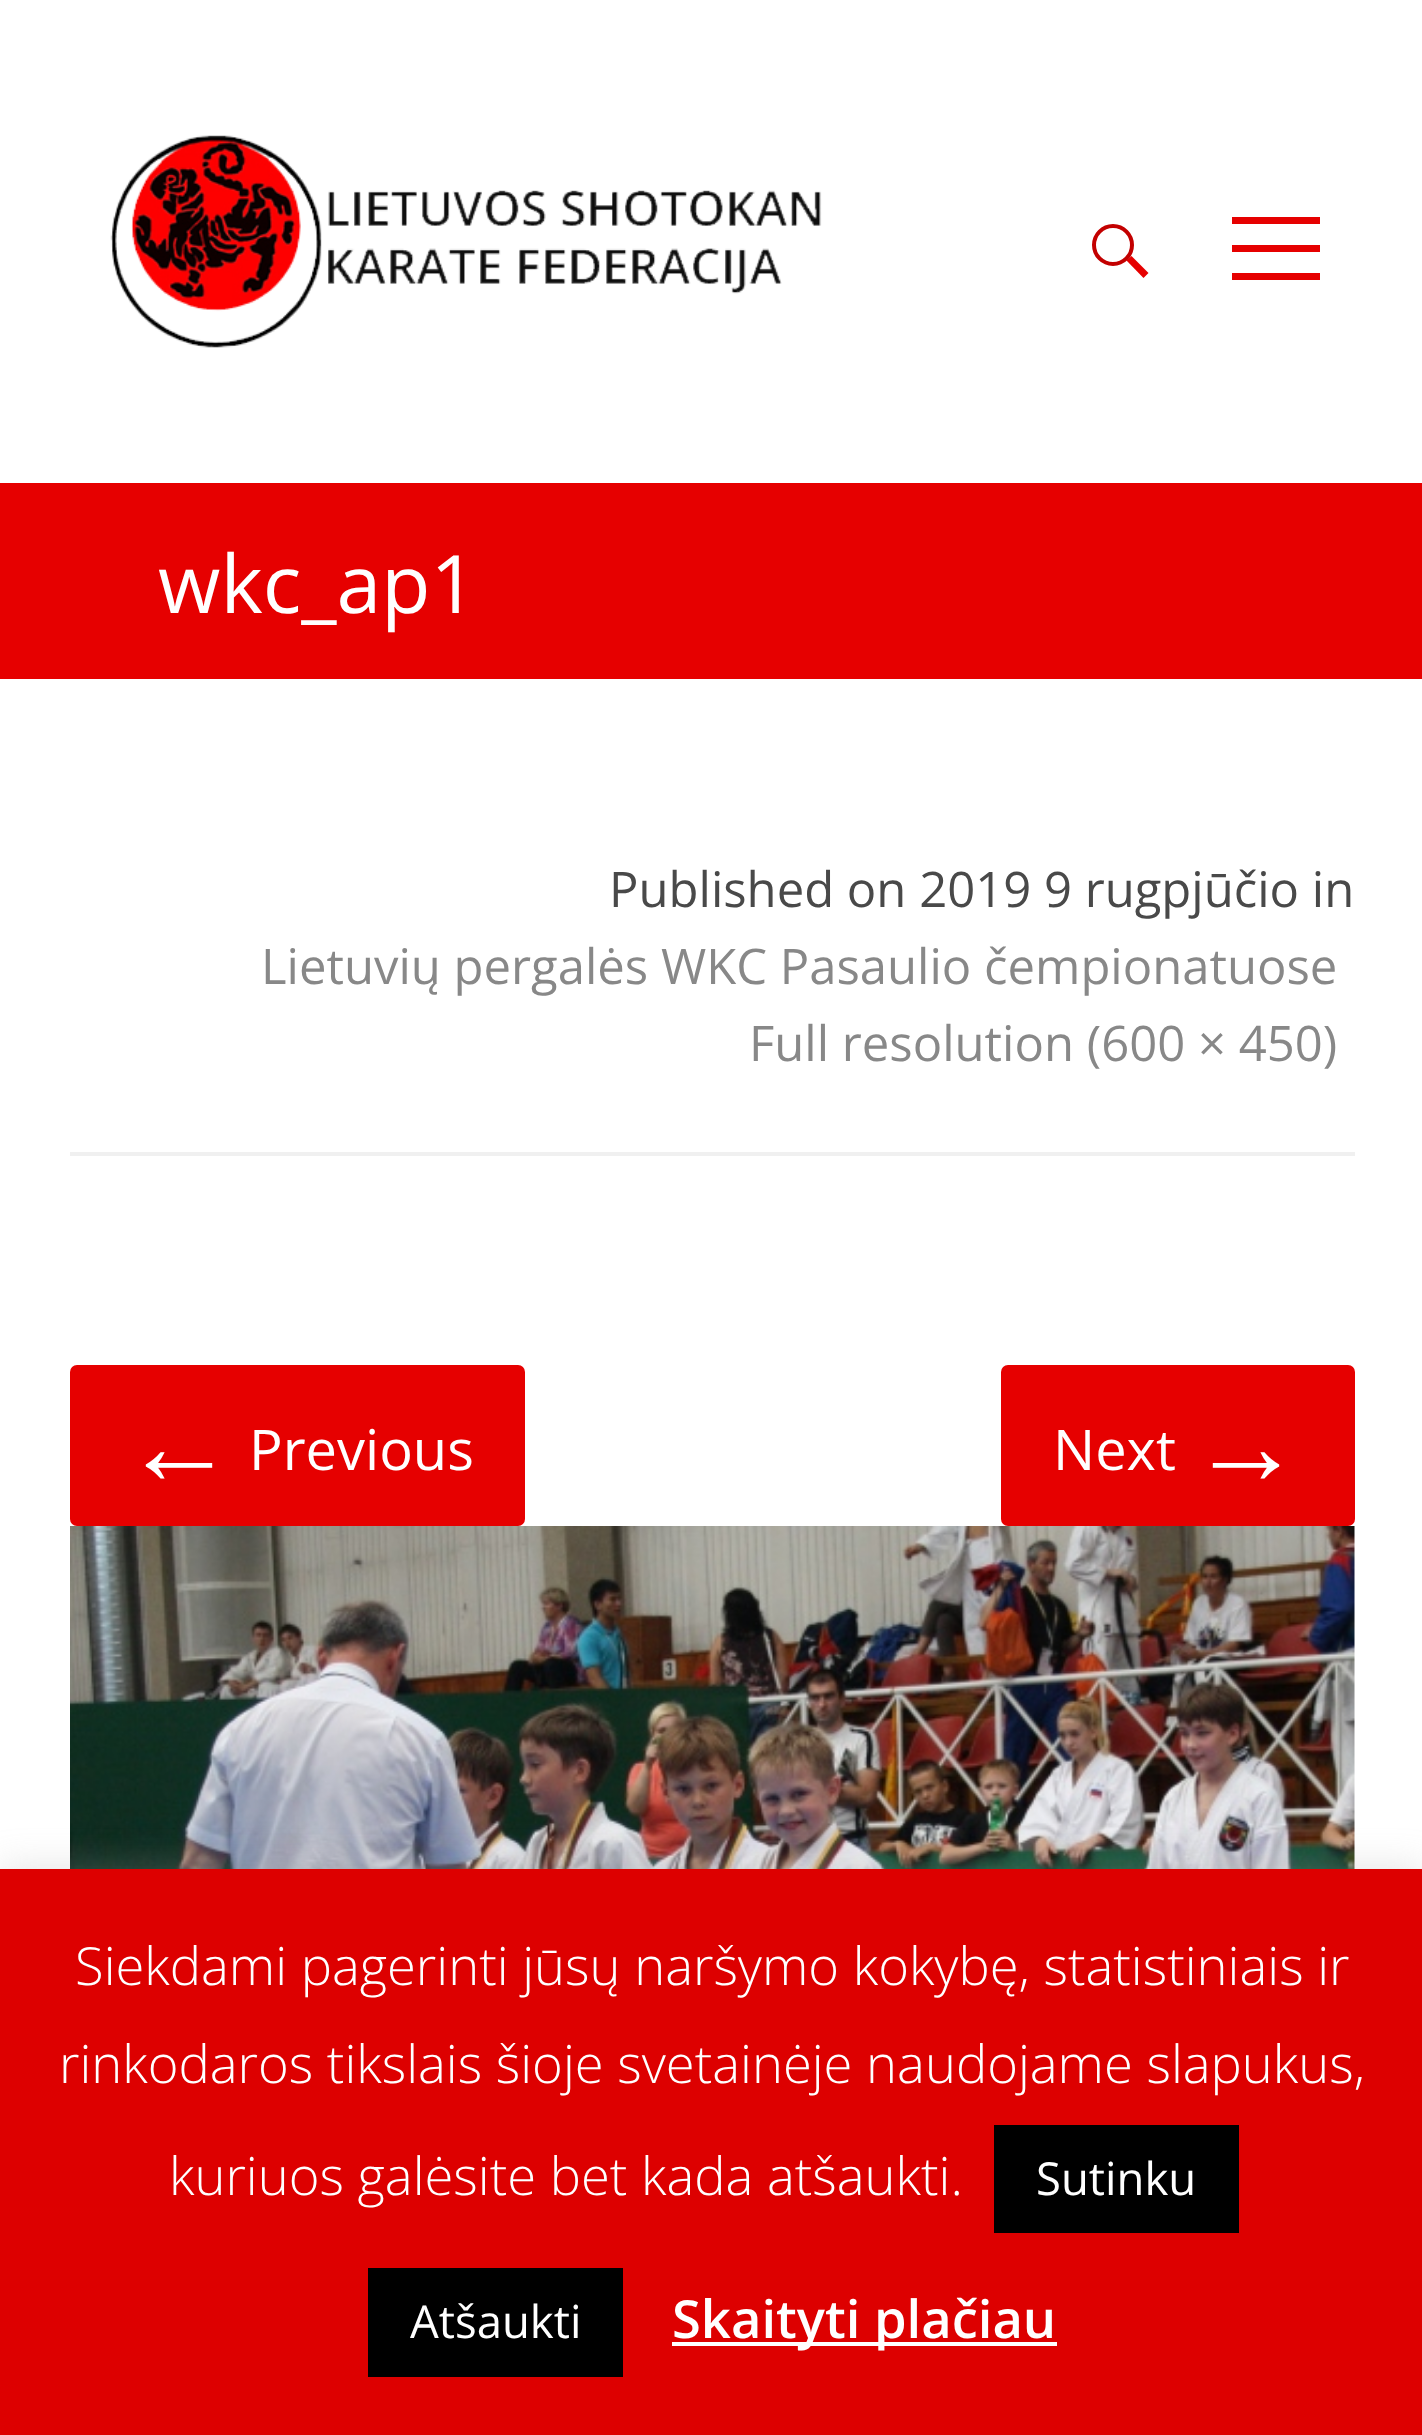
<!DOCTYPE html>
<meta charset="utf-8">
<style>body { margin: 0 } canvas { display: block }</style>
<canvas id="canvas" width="1422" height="2435"></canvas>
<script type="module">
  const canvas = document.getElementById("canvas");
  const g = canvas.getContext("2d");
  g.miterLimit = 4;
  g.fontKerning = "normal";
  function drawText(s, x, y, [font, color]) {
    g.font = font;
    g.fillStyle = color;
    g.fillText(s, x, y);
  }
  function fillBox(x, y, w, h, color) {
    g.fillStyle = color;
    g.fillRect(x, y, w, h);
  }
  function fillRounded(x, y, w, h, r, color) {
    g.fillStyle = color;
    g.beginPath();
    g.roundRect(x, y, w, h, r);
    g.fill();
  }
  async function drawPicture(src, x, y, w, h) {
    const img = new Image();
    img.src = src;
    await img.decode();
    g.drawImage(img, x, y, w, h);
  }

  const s1 = ["80.5px Open Sans", "#FFFFFF"];
  const s2 = ["49px Open Sans", "#494949"];
  const s3 = ["49px Open Sans", "#888888"];
  const s4 = ["112px Liberation Serif", "#FFFFFF"];
  const s5 = ["56px Open Sans", "#FFFFFF"];
  const s6 = ["300 52.5px Open Sans", "#FFFFFF"];
  const s7 = ["45.5px Open Sans", "#FFFFFF"];
  const s8 = ["600 52.5px Open Sans", "#FFFFFF"];

  fillBox(0, 0, 1422, 2435, "#FFFFFF");
  await drawPicture("pic1.png", 110, 135, 712, 213);
  g.fillStyle = "#E60000";
  g.beginPath();
  g.moveTo(1126.5, 260.5);
  g.lineTo(1131.5, 256);
  g.lineTo(1148.5, 273);
  g.lineTo(1143.5, 278);
  g.closePath();
  g.fill();
  g.beginPath();
  g.arc(1113, 245, 19, 0, Math.PI * 2);
  g.strokeStyle = "#C30000";
  g.lineWidth = 4;
  g.stroke();
  fillBox(1232, 217, 88, 7, "#E60000");
  fillBox(1232, 245, 88, 7, "#E60000");
  fillBox(1232, 273, 88, 7, "#E60000");
  fillBox(0, 483, 1422, 196, "#E60000");
  drawText("wkc_ap1", 158, 613, s1);
  fillBox(70, 1152, 1285, 4, "#F0F0F0");
  drawText("Published on 2019 9 rugpjūčio in", 609, 907, s2);
  drawText("Lietuvių pergalės WKC Pasaulio čempionatuose", 261, 984, s3);
  drawText("Full resolution (600 × 450)", 749, 1061, s3);
  fillRounded(70, 1365, 455, 161, 7, "#E60000");
  drawText("←", 123, 1484, s4);
  drawText("Previous", 249, 1470, s5);
  fillRounded(1001, 1365, 354, 161, 7, "#E60000");
  drawText("Next", 1053, 1470, s5);
  drawText("→", 1190, 1484, s4);
  await drawPicture("pic2.png", 70, 1526, 1285, 343);
  g.fillStyle = "rgba(172, 171, 171, 0.3)";
  g.filter = "blur(17.5px)";
  g.beginPath();
  g.rect(0, 1866, 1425, 567);
  g.fill();
  g.filter = "none";
  fillBox(0, 1869, 1422, 566, "#DD0000");
  drawText("Siekdami pagerinti jūsų naršymo kokybę, statistiniais ir", 75, 1985, s6);
  drawText("rinkodaros tikslais šioje svetainėje naudojame slapukus,", 59, 2083, s6);
  drawText("kuriuos galėsite bet kada atšaukti.", 169, 2195, s6);
  fillBox(994, 2125, 245, 108, "#000000");
  drawText("Sutinku", 1036, 2195, s7);
  fillBox(368, 2268, 255, 109, "#000000");
  drawText("Atšaukti", 410, 2338, s7);
  fillBox(672, 2342, 385, 4, "#FFFFFF");
  drawText("Skaityti plačiau", 672, 2338, s8);
</script>
